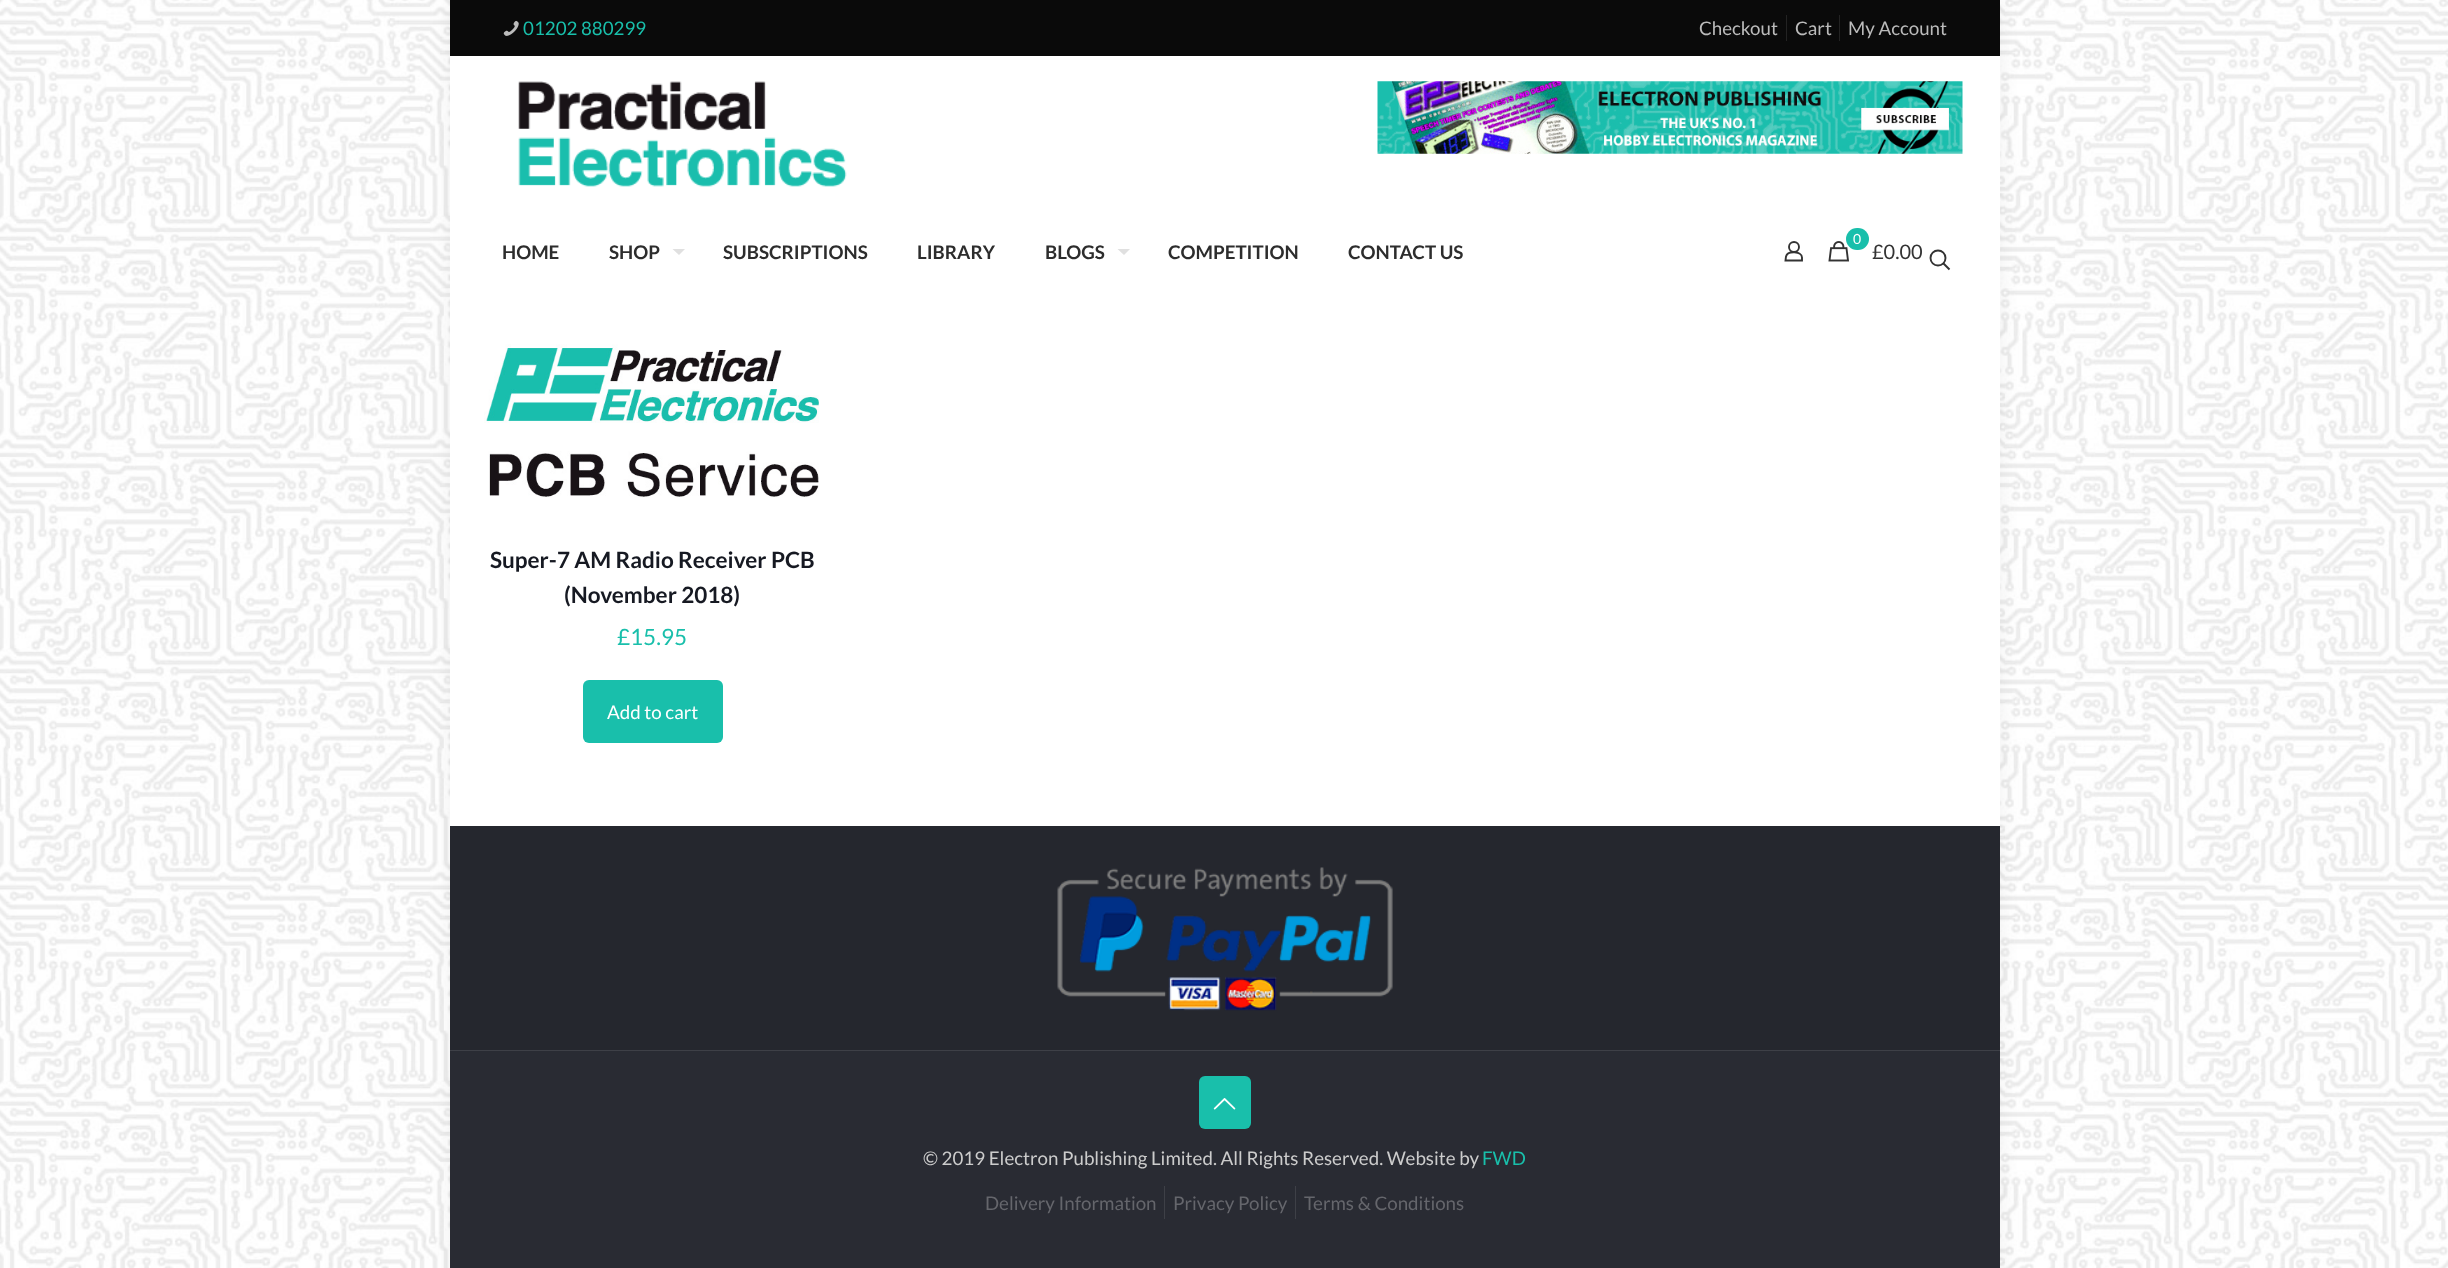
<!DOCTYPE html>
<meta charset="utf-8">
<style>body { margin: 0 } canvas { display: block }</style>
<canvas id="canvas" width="2448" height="1268"></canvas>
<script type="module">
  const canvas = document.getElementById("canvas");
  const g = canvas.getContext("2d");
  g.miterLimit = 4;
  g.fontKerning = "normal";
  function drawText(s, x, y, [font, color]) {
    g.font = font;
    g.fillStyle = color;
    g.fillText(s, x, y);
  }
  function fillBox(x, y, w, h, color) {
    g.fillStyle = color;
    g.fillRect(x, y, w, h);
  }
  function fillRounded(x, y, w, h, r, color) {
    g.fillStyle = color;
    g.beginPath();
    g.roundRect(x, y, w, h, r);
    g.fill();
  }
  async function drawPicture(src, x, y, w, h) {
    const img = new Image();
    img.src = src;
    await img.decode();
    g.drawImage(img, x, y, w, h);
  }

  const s1 = ["18.75px Lato", "#19BFAB"];
  const s2 = ["18.75px Lato", "#BBBBBB"];
  const s3 = ["bold 18.75px Lato", "#2D2D2D"];
  const s4 = ["14px Lato", "#FFFFFF"];
  const s5 = ["20px Lato", "#333333"];
  const s6 = ["bold 22.5px Lato", "#161922"];
  const s7 = ["22.5px Lato", "#19BFAB"];
  const s8 = ["18.75px Lato", "#FFFFFF"];
  const s9 = ["18.75px Lato", "#CCCCCC"];
  const s10 = ["18.75px Lato", "#65666C"];

  fillBox(0, 0, 2448, 1268, "#FFFFFF");
  await drawPicture("pic1.png", 0, 0, 2448, 1268);
  g.fillStyle = "rgba(0, 0, 0, 0.06)";
  g.filter = "blur(9.5px)";
  g.beginPath();
  g.rect(450, 0, 1550, 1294);
  g.fill();
  g.filter = "none";
  fillBox(450, 56, 1550, 770, "#FFFFFF");
  fillBox(450, 0, 1550, 56, "#0A0A0A");
  await drawPicture("pic2.png", 503, 20, 16, 16);
  drawText("01202 880299", 523, 35, s1);
  fillBox(1786, 15, 1, 26, "#232323");
  drawText("Checkout", 1699, 35, s2);
  fillBox(1839, 15, 1, 26, "#232323");
  drawText("Cart", 1795, 35, s2);
  drawText("My Account", 1848, 35, s2);
  await drawPicture("pic3.png", 518, 81, 329, 106);
  await drawPicture("pic4.png", 1377, 81, 586, 73);
  drawText("HOME", 502, 259, s3);
  drawText("SHOP", 609, 259, s3);
  g.fillStyle = "#E0E0E0";
  g.beginPath();
  g.moveTo(672.5, 249);
  g.lineTo(685, 249);
  g.lineTo(679, 255);
  g.closePath();
  g.fill();
  drawText("SUBSCRIPTIONS", 723, 259, s3);
  drawText("LIBRARY", 917, 259, s3);
  drawText("BLOGS", 1045, 259, s3);
  g.fillStyle = "#E0E0E0";
  g.beginPath();
  g.moveTo(1117.5, 249);
  g.lineTo(1130, 249);
  g.lineTo(1124, 255);
  g.closePath();
  g.fill();
  drawText("COMPETITION", 1168, 259, s3);
  drawText("CONTACT US", 1348, 259, s3);
  g.beginPath();
  g.arc(1794, 247, 5, 0, Math.PI * 2);
  g.strokeStyle = "#333333";
  g.lineWidth = 1.9;
  g.stroke();
  g.beginPath();
  g.moveTo(1802, 257.5);
  g.lineTo(1802, 260.5);
  g.lineTo(1785.5, 260.5);
  g.lineTo(1786, 256.5);
  g.bezierCurveTo(1787.5, 250.5, 1802, 251, 1802, 257.5);
  g.closePath();
  g.stroke();
  await drawPicture("pic5.png", 1828, 241, 22, 21);
  fillRounded(1846, 228, 23, 22, 11, "#19BFAB");
  drawText("0", 1853, 244, s4);
  drawText("£0.00", 1872, 259, s5);
  g.beginPath();
  g.arc(1938, 258, 7.5, 0, Math.PI * 2);
  g.stroke();
  g.beginPath();
  g.moveTo(1943, 263);
  g.lineTo(1949.5, 269.5);
  g.stroke();
  await drawPicture("pic6.png", 484, 344, 335, 154);
  drawText("Super-7 AM Radio Receiver PCB", 490, 568, s6);
  drawText("(November 2018)", 564, 603, s6);
  drawText("£15.95", 617, 645, s7);
  fillRounded(583, 680, 140, 63, 6, "#19BFAB");
  drawText("Add to cart", 607, 719, s8);
  fillBox(450, 1051, 1550, 217, "#292B33");
  fillBox(450, 826, 1550, 224, "#25272E");
  await drawPicture("pic7.png", 1057, 867, 336, 144);
  fillBox(450, 1050, 1550, 1, "#3E4047");
  fillRounded(1199, 1076, 52, 53, 6, "#19BFAB");
  await drawPicture("pic8.png", 1213, 1098, 23, 12);
  drawText("© 2019 Electron Publishing Limited. All Rights Reserved. Website by", 923, 1165, s9);
  drawText("FWD", 1482, 1165, s1);
  fillBox(1164, 1186, 1, 33, "#3E4047");
  drawText("Delivery Information", 985, 1210, s10);
  fillBox(1295, 1186, 1, 33, "#3E4047");
  drawText("Privacy Policy", 1173, 1210, s10);
  drawText("Terms & Conditions", 1304, 1210, s10);
</script>
